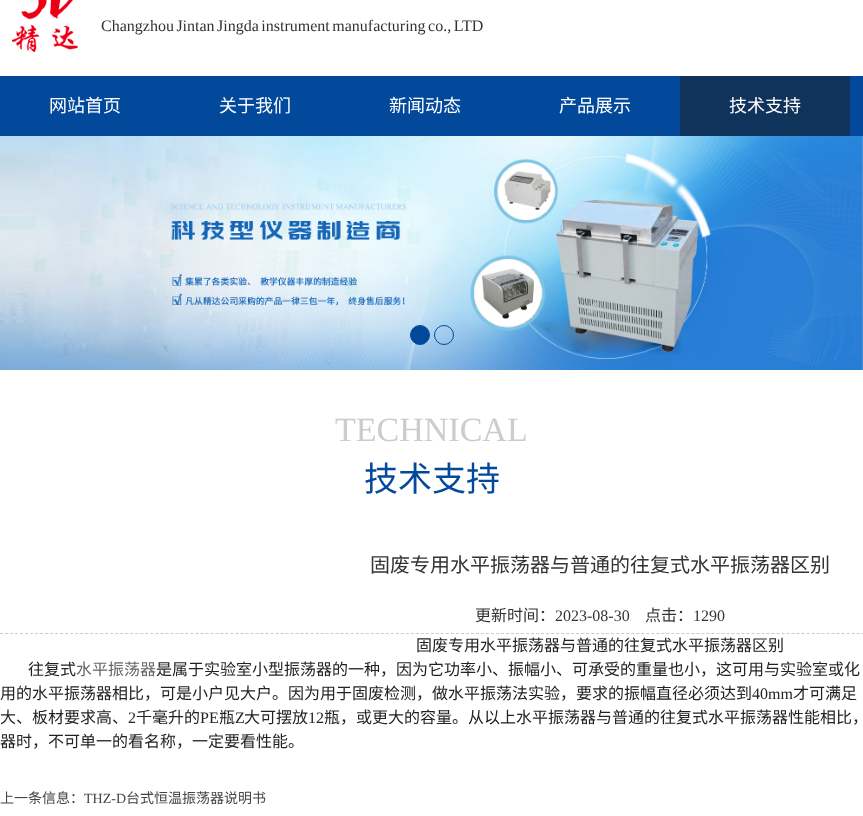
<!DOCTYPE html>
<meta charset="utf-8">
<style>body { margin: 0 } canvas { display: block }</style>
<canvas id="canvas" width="863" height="816"></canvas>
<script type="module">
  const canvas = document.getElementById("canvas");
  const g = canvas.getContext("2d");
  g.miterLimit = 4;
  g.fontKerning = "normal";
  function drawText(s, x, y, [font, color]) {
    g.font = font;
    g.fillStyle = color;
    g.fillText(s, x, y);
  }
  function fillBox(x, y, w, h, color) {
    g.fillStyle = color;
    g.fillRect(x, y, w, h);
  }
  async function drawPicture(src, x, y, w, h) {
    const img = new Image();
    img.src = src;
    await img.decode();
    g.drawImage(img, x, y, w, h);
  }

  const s1 = ["16px Liberation Serif", "#333333"];
  const s2 = ["18px Noto Sans CJK SC", "#FFFFFF"];
  const s3 = ["34px Liberation Serif", "#CCCCCC"];
  const s4 = ["34px Noto Sans CJK SC", "#03499B"];
  const s5 = ["20px Noto Sans CJK SC", "#333333"];
  const s6 = ["16px Noto Sans CJK SC", "#333333"];
  const s7 = ["16px Noto Sans CJK SC", "#222222"];
  const s8 = ["16px Noto Sans CJK SC", "#666666"];
  const s9 = ["16px Liberation Serif", "#222222"];
  const s10 = ["14px Noto Sans CJK SC", "#454545"];
  const s11 = ["14px Liberation Serif", "#454545"];

  fillBox(0, 0, 863, 816, "#FFFFFF");
  await drawPicture("pic1.png", 12, 0, 66, 52);
  g.wordSpacing = "-1.5px";
  drawText("Changzhou Jintan Jingda instrument manufacturing co., LTD", 101, 31, s1);
  fillBox(0, 76, 863, 60, "#03499B");
  g.wordSpacing = "0px";
  drawText("网站首页", 49, 112, s2);
  drawText("关于我们", 219, 112, s2);
  drawText("新闻动态", 389, 112, s2);
  drawText("产品展示", 559, 112, s2);
  fillBox(680, 76, 170, 60, "#10335C");
  drawText("技术支持", 729, 112, s2);
  await drawPicture("pic2.png", 0, 136, 863, 234);
  g.fillStyle = "#03499B";
  g.beginPath();
  g.arc(420, 335, 9.5, 0, Math.PI * 2);
  g.fill();
  g.strokeStyle = "#03499B";
  g.stroke();
  g.beginPath();
  g.arc(444, 335, 9.5, 0, Math.PI * 2);
  g.stroke();
  drawText("TECHNICAL", 335, 441, s3);
  drawText("技术支持", 364, 491, s4);
  drawText("固废专用水平振荡器与普通的往复式水平振荡器区别", 370, 572, s5);
  g.beginPath();
  g.moveTo(0, 633.5);
  g.lineTo(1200, 633.5);
  g.strokeStyle = "#CCCCCC";
  g.setLineDash([3, 2.01]);
  g.stroke();
  drawText("更新时间：", 475, 621, s6);
  drawText("2023-08-30", 555, 621, s1);
  drawText("点击：", 645, 621, s6);
  drawText("1290", 693, 621, s1);
  drawText("固废专用水平振荡器与普通的往复式水平振荡器区别", 416, 651, s7);
  drawText("往复式", 28, 675, s7);
  drawText("水平振荡器", 76, 675, s8);
  drawText("是属于实验室小型振荡器的一种，因为它功率小、振幅小、可承受的重量也小，这可用与实验室或化", 156, 675, s7);
  drawText("用的水平振荡器相比，可是小户见大户。因为用于固废检测，做水平振荡法实验，要求的振幅直径必须达到", 0, 699, s7);
  drawText("40mm", 752, 699, s9);
  drawText("才可满足", 793, 699, s7);
  drawText("大、板材要求高、", 0, 723, s7);
  drawText("2", 128, 723, s9);
  drawText("千毫升的", 136, 723, s7);
  drawText("PE", 200, 723, s9);
  drawText("瓶", 219, 723, s7);
  drawText("Z", 235, 723, s9);
  drawText("大可摆放", 244, 723, s7);
  drawText("12", 308, 723, s9);
  drawText("瓶，或更大的容量。从以上水平振荡器与普通的往复式水平振荡器性能相比，", 324, 723, s7);
  drawText("器时，不可单一的看名称，一定要看性能。", 0, 747, s7);
  drawText("上一条信息：", 0, 803, s10);
  drawText("THZ-D", 84, 803, s11);
  drawText("台式恒温振荡器说明书", 126, 803, s10);
</script>
